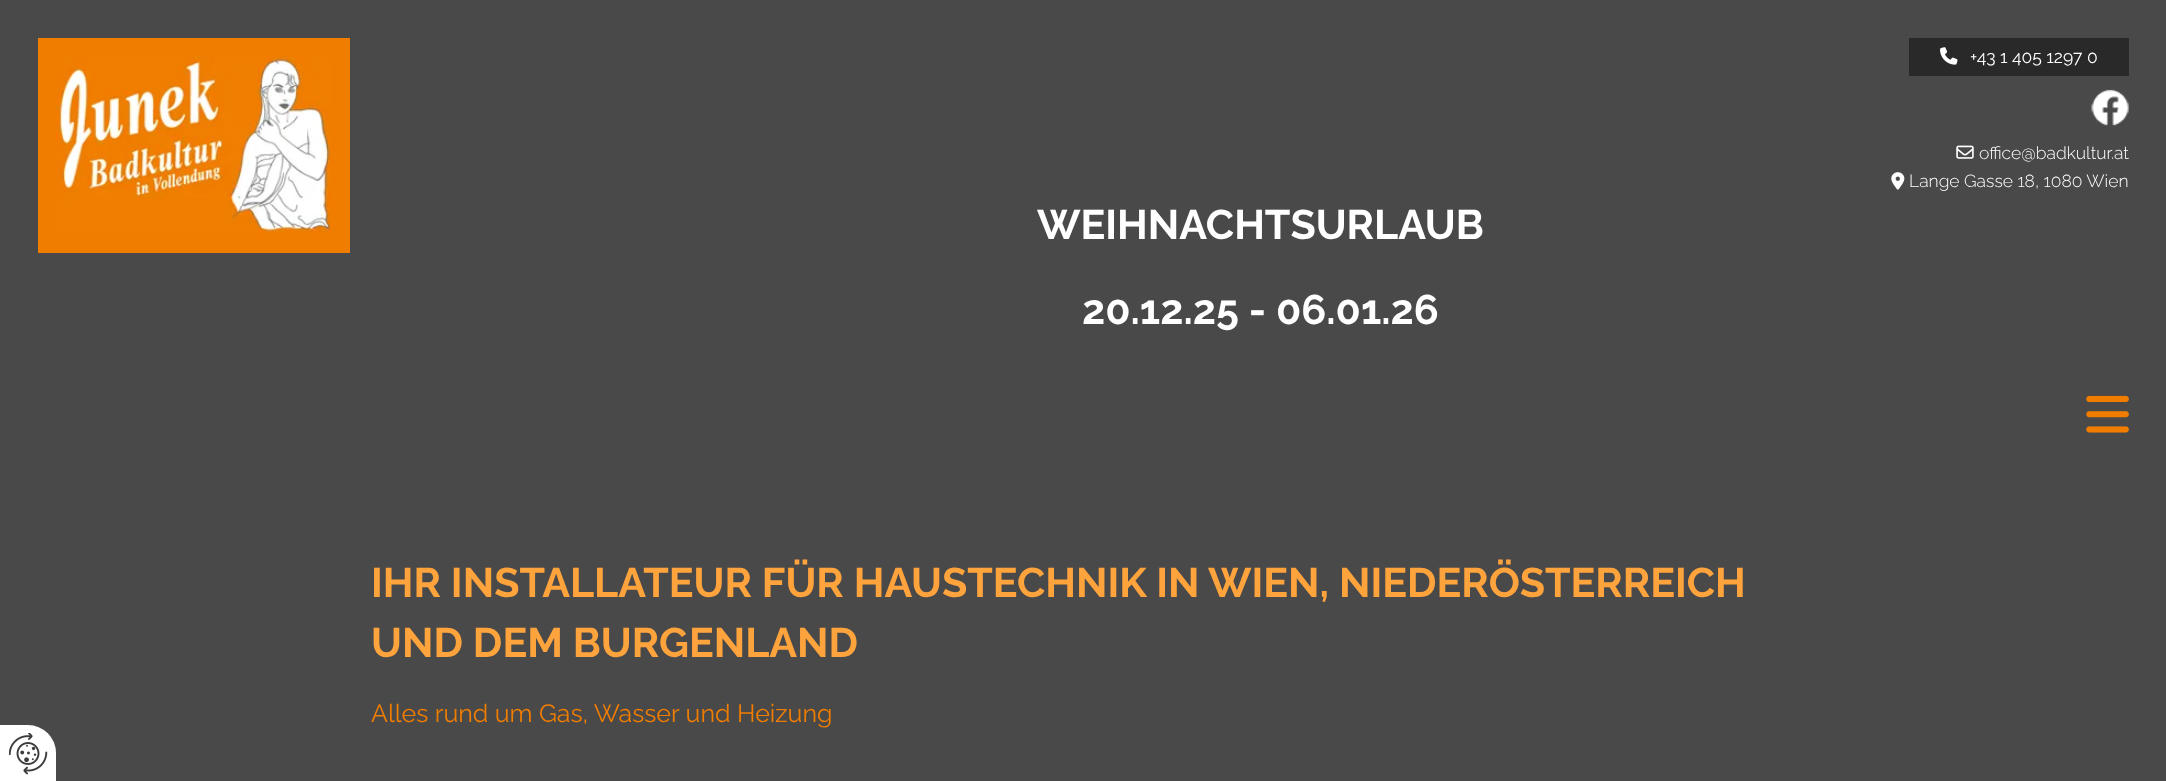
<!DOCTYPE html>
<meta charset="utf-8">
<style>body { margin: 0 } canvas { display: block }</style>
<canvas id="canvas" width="2166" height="781"></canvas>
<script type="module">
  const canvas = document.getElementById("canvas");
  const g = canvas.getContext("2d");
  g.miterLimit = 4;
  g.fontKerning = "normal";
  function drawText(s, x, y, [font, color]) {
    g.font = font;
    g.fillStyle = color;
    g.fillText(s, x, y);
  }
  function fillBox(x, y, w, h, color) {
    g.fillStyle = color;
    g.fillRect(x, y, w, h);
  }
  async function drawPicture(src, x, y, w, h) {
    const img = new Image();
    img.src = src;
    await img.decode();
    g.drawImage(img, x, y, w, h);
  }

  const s1 = ["100 17.5px 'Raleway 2'", "#FFFFFF"];
  const s2 = ["100 17.5px 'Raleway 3'", "#FFFFFF"];
  const s3 = ["100 41.25px Raleway", "#FFFFFF"];
  const s4 = ["100 41.25px Raleway", "#FFA33D"];
  const s5 = ["100 25px 'Raleway 2'", "#F07D00"];

  fillBox(0, 0, 2166, 781, "#494949");
  fillBox(38, 38, 312, 215, "#F07D00");
  await drawPicture("pic1.png", 56, 56, 275, 177);
  fillBox(1909, 38, 220, 38, "#292929");
  await drawPicture("pic2.png", 1940, 47, 18, 18);
  drawText("+43 1 405 1297 0", 1970, 63, s1);
  await drawPicture("pic3.png", 2091, 89, 38, 37);
  await drawPicture("pic4.png", 1956, 145, 18, 14);
  drawText("office@badkultur.at", 1979, 159, s2);
  await drawPicture("pic5.png", 1891, 172, 14, 18);
  drawText("Lange Gasse 18, 1080 Wien", 1909, 187, s2);
  drawText("WEIHNACHTSURLAUB", 1037, 239, s3);
  drawText("20.12.25 - 06.01.26", 1082, 324, s3);
  await drawPicture("pic6.png", 2086, 395, 43, 38);
  drawText("IHR INSTALLATEUR FÜR HAUSTECHNIK IN WIEN, NIEDERÖSTERREICH", 371, 597, s4);
  drawText("UND DEM BURGENLAND", 371, 657, s4);
  drawText("Alles rund um Gas, Wasser und Heizung", 371, 722, s5);
  g.fillStyle = "#FFFFFF";
  g.beginPath();
  g.roundRect(0, 725, 56, 56, [0, 28, 0, 0]);
  g.fill();
  await drawPicture("pic7.png", 9, 733, 39, 42);
</script>
